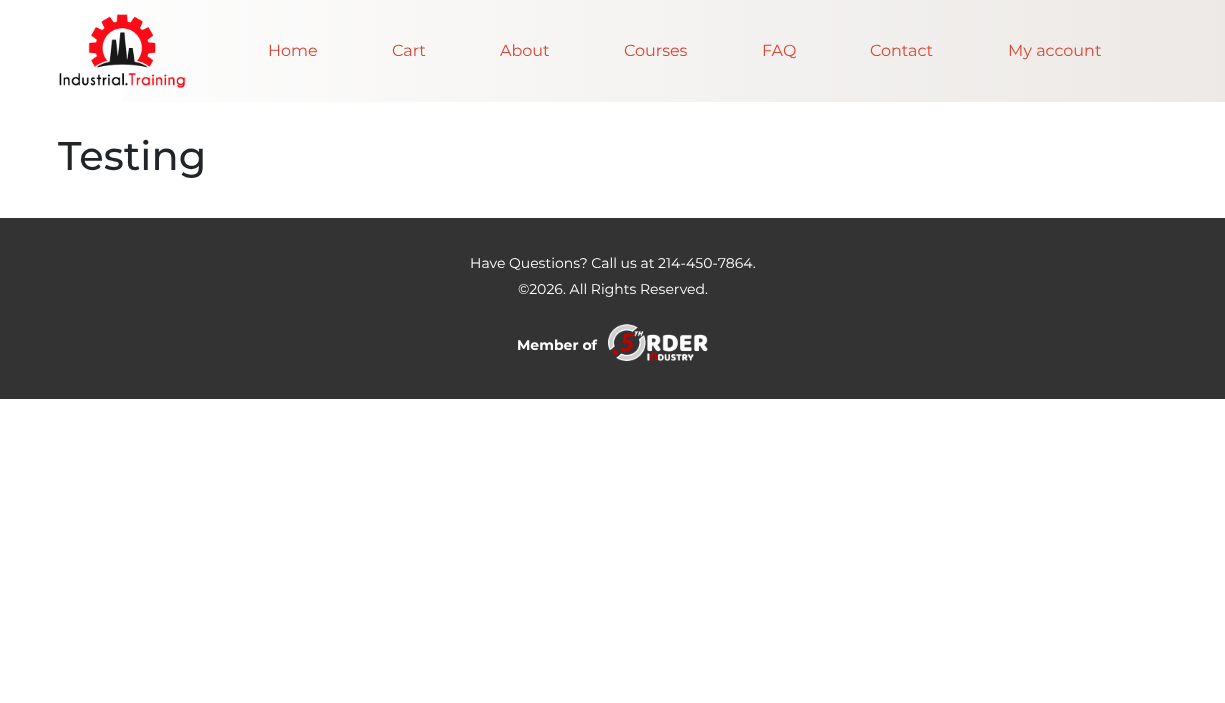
<!DOCTYPE html>
<meta charset="utf-8">
<style>body { margin: 0 } canvas { display: block }</style>
<canvas id="canvas" width="1225" height="703"></canvas>
<script type="module">
  const canvas = document.getElementById("canvas");
  const g = canvas.getContext("2d");
  g.miterLimit = 4;
  g.fontKerning = "normal";
  function drawText(s, x, y, [font, color]) {
    g.font = font;
    g.fillStyle = color;
    g.fillText(s, x, y);
  }
  function fillBox(x, y, w, h, color) {
    g.fillStyle = color;
    g.fillRect(x, y, w, h);
  }
  async function drawPicture(src, x, y, w, h) {
    const img = new Image();
    img.src = src;
    await img.decode();
    g.drawImage(img, x, y, w, h);
  }
  let gradient;

  const s1 = ["16px Montserrat", "#DD4433"];
  const s2 = ["500 40px Montserrat", "#212529"];
  const s3 = ["14px Montserrat", "#FFFFFF"];
  const s4 = ["bold 14px Montserrat", "#FFFFFF"];

  fillBox(0, 0, 1225, 703, "#FFFFFF");
  gradient = g.createLinearGradient(0, 51, 1225, 51);
  gradient.addColorStop(0, "#FFFFFF");
  gradient.addColorStop(1, "#ECE9E6");
  g.fillStyle = gradient;
  g.fillRect(123, 0, 1102, 102);
  await drawPicture("pic1.png", 59, 14, 127, 74);
  drawText("Home", 268, 56, s1);
  drawText("Cart", 392, 56, s1);
  drawText("About", 500, 56, s1);
  drawText("Courses", 624, 56, s1);
  drawText("FAQ", 762, 56, s1);
  drawText("Contact", 870, 56, s1);
  drawText("My account", 1008, 56, s1);
  drawText("Testing", 58, 170, s2);
  fillBox(0, 218, 1225, 181, "#333333");
  drawText("Have Questions? Call us at 214-450-7864.", 470, 268, s3);
  drawText("©2026. All Rights Reserved.", 518, 294, s3);
  drawText("Member of", 517, 350, s4);
  await drawPicture("pic2.png", 608, 324, 100, 37);
</script>
